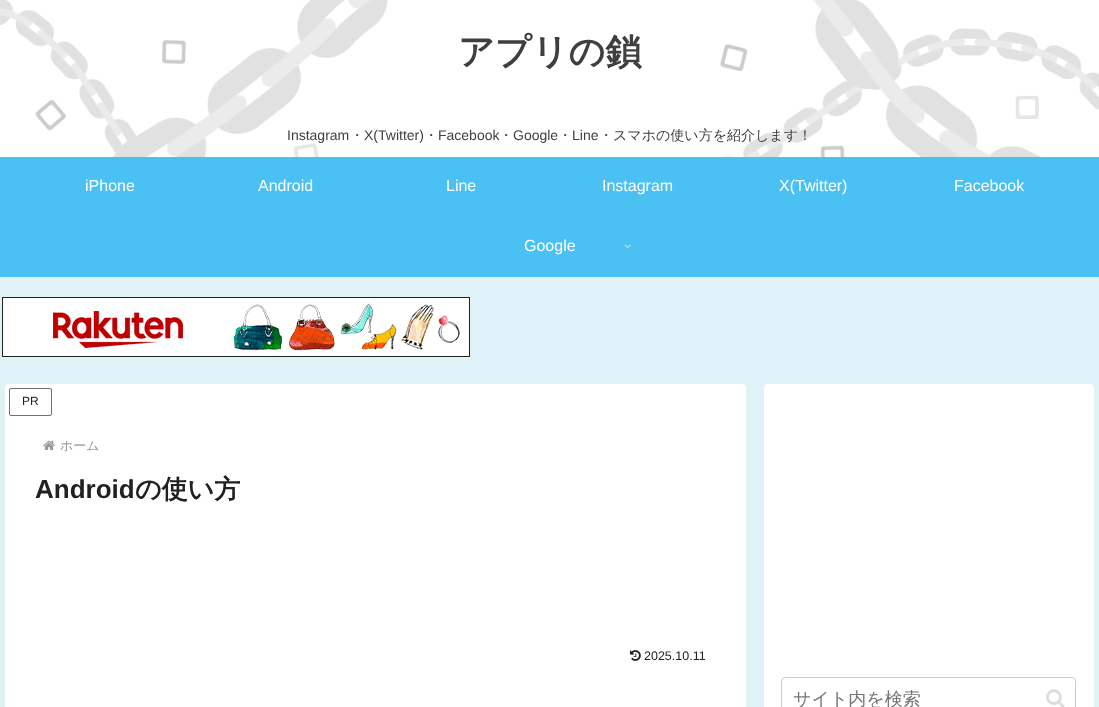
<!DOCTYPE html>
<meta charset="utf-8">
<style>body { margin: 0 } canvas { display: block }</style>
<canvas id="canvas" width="1099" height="707"></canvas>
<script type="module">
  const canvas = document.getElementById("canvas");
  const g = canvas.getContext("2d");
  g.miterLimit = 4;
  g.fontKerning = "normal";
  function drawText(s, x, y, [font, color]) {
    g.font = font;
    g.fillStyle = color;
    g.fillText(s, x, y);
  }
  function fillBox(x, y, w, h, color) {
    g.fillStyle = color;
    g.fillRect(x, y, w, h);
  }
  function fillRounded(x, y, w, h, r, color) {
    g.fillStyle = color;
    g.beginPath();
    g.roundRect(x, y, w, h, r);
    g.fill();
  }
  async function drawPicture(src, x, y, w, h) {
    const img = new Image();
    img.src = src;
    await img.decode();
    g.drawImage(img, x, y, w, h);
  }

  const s1 = ["bold 36px WenQuanYi Zen Hei", "#3F3F3F"];
  const s2 = ["14px Liberation Sans", "#3F3F3F"];
  const s3 = ["500 14px WenQuanYi Zen Hei", "#3F3F3F"];
  const s4 = ["16px Liberation Sans", "#FFFFFF"];
  const s5 = ["12px Liberation Sans", "#212121"];
  const s6 = ["500 13px WenQuanYi Zen Hei", "#999999"];
  const s7 = ["bold 26px Liberation Sans", "#212121"];
  const s8 = ["bold 26px WenQuanYi Zen Hei", "#212121"];
  const s9 = ["12.5px Liberation Sans", "#212121"];
  const s10 = ["500 18px WenQuanYi Zen Hei", "#757575"];

  fillBox(0, 0, 1099, 707, "#DFF2F7");
  await drawPicture("pic1.png", 0, 0, 1099, 157);
  drawText("アプリの鎖", 458, 64, s1);
  drawText("Instagram", 287, 140, s2);
  drawText("・", 350, 140, s3);
  drawText("X(Twitter)", 364, 140, s2);
  drawText("・", 424, 140, s3);
  drawText("Facebook", 438, 140, s2);
  drawText("・", 499, 140, s3);
  drawText("Google", 513, 140, s2);
  drawText("・", 558, 140, s3);
  drawText("Line", 572, 140, s2);
  drawText("・スマホの使い方を紹介します！", 599, 140, s3);
  fillBox(0, 157, 1099, 120, "#4BC0F2");
  drawText("iPhone", 85, 191, s4);
  drawText("Android", 258, 191, s4);
  drawText("Line", 446, 191, s4);
  drawText("Instagram", 602, 191, s4);
  drawText("X(Twitter)", 779, 191, s4);
  drawText("Facebook", 954, 191, s4);
  drawText("Google", 524, 251, s4);
  await drawPicture("pic2.png", 624, 244, 7, 5);
  await drawPicture("pic3.png", 2, 297, 468, 60);
  fillRounded(5, 384, 741, 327, 4, "#FFFFFF");
  g.beginPath();
  g.roundRect(9.5, 388.5, 42, 27, 1.5);
  g.strokeStyle = "#707070";
  g.stroke();
  drawText("PR", 22, 405, s5);
  await drawPicture("pic4.png", 43, 440, 12, 10);
  drawText("ホーム", 60, 450, s6);
  drawText("Android", 35, 498, s7);
  drawText("の使い方", 135, 498, s8);
  await drawPicture("pic5.png", 630, 650, 11, 11);
  drawText("2025.10.11", 644, 660, s9);
  fillRounded(764, 384, 330, 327, 4, "#FFFFFF");
  g.beginPath();
  g.roundRect(781.5, 677.5, 294, 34, 3.5);
  g.strokeStyle = "#CCCCCC";
  g.stroke();
  drawText("サイト内を検索", 793, 705, s10);
  await drawPicture("pic6.png", 1046, 689, 19, 18);
</script>
